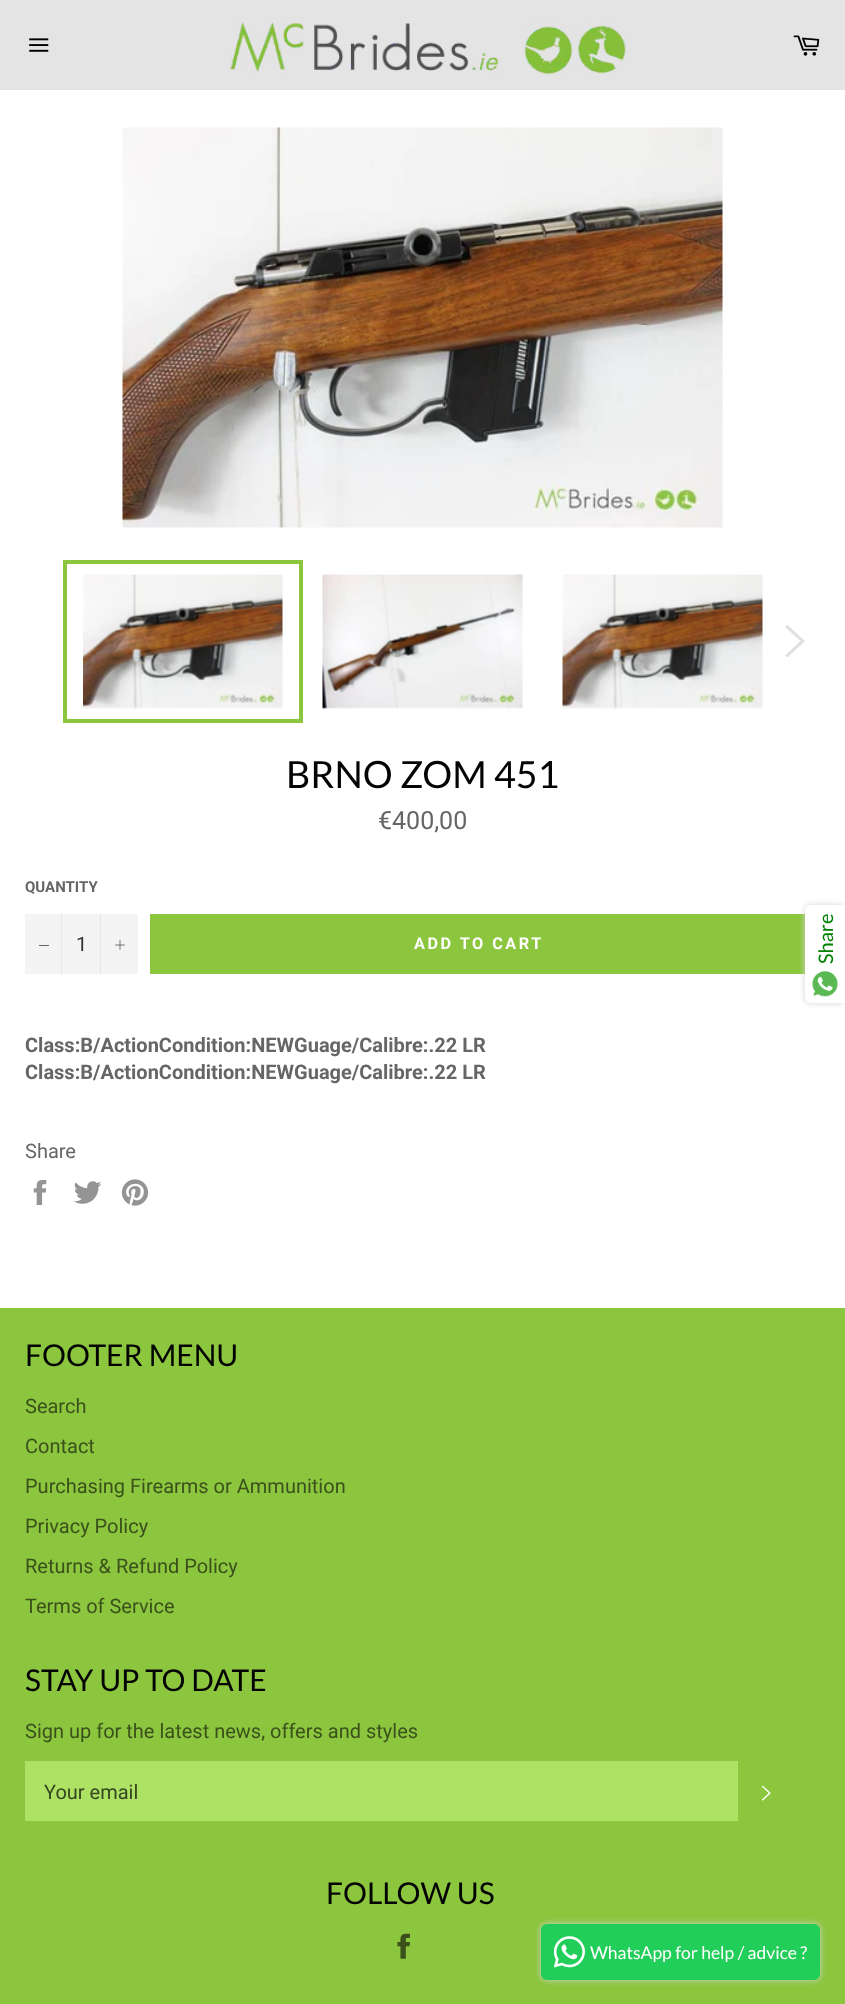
<!DOCTYPE html>
<meta charset="utf-8">
<style>body { margin: 0 } canvas { display: block }</style>
<canvas id="canvas" width="845" height="2004"></canvas>
<script type="module">
  const canvas = document.getElementById("canvas");
  const g = canvas.getContext("2d");
  g.miterLimit = 4;
  g.fontKerning = "normal";
  function drawText(s, x, y, [font, color]) {
    g.font = font;
    g.fillStyle = color;
    g.fillText(s, x, y);
  }
  function fillBox(x, y, w, h, color) {
    g.fillStyle = color;
    g.fillRect(x, y, w, h);
  }
  function fillRounded(x, y, w, h, r, color) {
    g.fillStyle = color;
    g.beginPath();
    g.roundRect(x, y, w, h, r);
    g.fill();
  }
  async function drawPicture(src, x, y, w, h) {
    const img = new Image();
    img.src = src;
    await img.decode();
    g.drawImage(img, x, y, w, h);
  }

  const s1 = ["37.5px Lato", "#030303"];
  const s2 = ["25px Roboto", "#666666"];
  const s3 = ["bold 15px Roboto", "#666666"];
  const s4 = ["20px Roboto", "#333333"];
  const s5 = ["bold 16.25px Roboto", "#FFFFFF"];
  const s6 = ["bold 20px Roboto", "#666666"];
  const s7 = ["20px Roboto", "#666666"];
  const s8 = ["30px Lato", "#030303"];
  const s9 = ["20px Roboto", "#3A511B"];
  const s10 = ["20px Roboto", "#364620"];
  const s11 = ["17.5px Lato", "#FFFFFF"];

  fillBox(0, 0, 845, 2004, "#FFFFFF");
  fillBox(0, 0, 845, 90, "#E4E4E4");
  await drawPicture("pic1.png", 29, 38, 20, 14);
  await drawPicture("pic2.png", 230, 22, 396, 53);
  await drawPicture("pic3.png", 793, 35, 27, 21);
  await drawPicture("pic4.png", 122, 127, 601, 401);
  await drawPicture("pic5.png", 83, 574, 200, 135);
  g.strokeStyle = "#8CC63E";
  g.lineWidth = 4;
  g.strokeRect(65, 562, 236, 159);
  await drawPicture("pic6.png", 322, 574, 201, 135);
  await drawPicture("pic7.png", 562, 574, 201, 135);
  g.fillStyle = "#E0E0E0";
  g.beginPath();
  g.moveTo(785, 627);
  g.lineTo(787.5, 625);
  g.lineTo(805, 641);
  g.lineTo(787.5, 657.5);
  g.lineTo(785, 655.5);
  g.lineTo(800.5, 641);
  g.closePath();
  g.fill();
  drawText("BRNO ZOM 451", 286, 788, s1);
  drawText("€400,00", 378, 829, s2);
  drawText("QUANTITY", 25, 892, s3);
  fillBox(25, 914, 113, 60, "#F4F4F4");
  fillBox(61, 914, 1, 60, "#E7E7E7");
  fillBox(39, 945, 10, 1, "#666666");
  drawText("1", 76, 951, s4);
  fillBox(100, 914, 1, 60, "#E7E7E7");
  await drawPicture("pic8.png", 115, 940, 10, 10);
  fillBox(150, 914, 655, 60, "#8CC63E");
  g.letterSpacing = "2.5px";
  drawText("ADD TO CART", 414, 949, s5);
  g.letterSpacing = "0px";
  drawText("Class:B/ActionCondition:NEWGuage/Calibre:.22 LR", 25, 1052, s6);
  drawText("Class:B/ActionCondition:NEWGuage/Calibre:.22 LR", 25, 1079, s6);
  drawText("Share", 25, 1158, s7);
  await drawPicture("pic9.png", 33, 1180, 14, 25);
  await drawPicture("pic10.png", 74, 1181, 28, 23);
  await drawPicture("pic11.png", 121, 1179, 28, 27);
  fillBox(0, 1308, 845, 696, "#8CC63E");
  drawText("FOOTER MENU", 25, 1366, s8);
  drawText("Search", 25, 1413, s9);
  drawText("Contact", 25, 1453, s9);
  drawText("Purchasing Firearms or Ammunition", 25, 1493, s9);
  drawText("Privacy Policy", 25, 1533, s9);
  drawText("Returns & Refund Policy", 25, 1573, s9);
  drawText("Terms of Service", 25, 1613, s9);
  drawText("STAY UP TO DATE", 25, 1691, s8);
  drawText("Sign up for the latest news, offers and styles", 25, 1738, s9);
  fillBox(25, 1761, 713, 60, "#ADE264");
  drawText("Your email", 44, 1799, s10);
  await drawPicture("pic12.png", 761, 1785, 10, 16);
  drawText("FOLLOW US", 326, 1904, s8);
  await drawPicture("pic13.png", 397, 1933, 13, 26);
  g.fillStyle = "#D3D3D3";
  g.filter = "blur(3px)";
  g.beginPath();
  g.roundRect(805, 905, 40, 98, 6);
  g.fill();
  g.filter = "none";
  g.fillStyle = "#FFFFFF";
  g.beginPath();
  g.roundRect(805, 905, 40, 98, [6, 0, 0, 6]);
  g.fill();
  g.font = "20px Lato";
  g.fillStyle = "#008000";
  g.save();
  g.translate(833, 964);
  g.rotate(-90 * Math.PI / 180);
  g.fillText("Share", 0, 0);
  g.restore();
  await drawPicture("pic14.png", 812, 971, 26, 26);
  g.fillStyle = "#D3D3D3";
  g.filter = "blur(3px)";
  g.beginPath();
  g.roundRect(541, 1924, 279, 56, 6);
  g.fill();
  g.filter = "none";
  fillRounded(541, 1924, 279, 56, 6, "#22CE5A");
  await drawPicture("pic15.png", 554, 1936, 31, 32);
  drawText("WhatsApp for help / advice ?", 590, 1959, s11);
</script>
